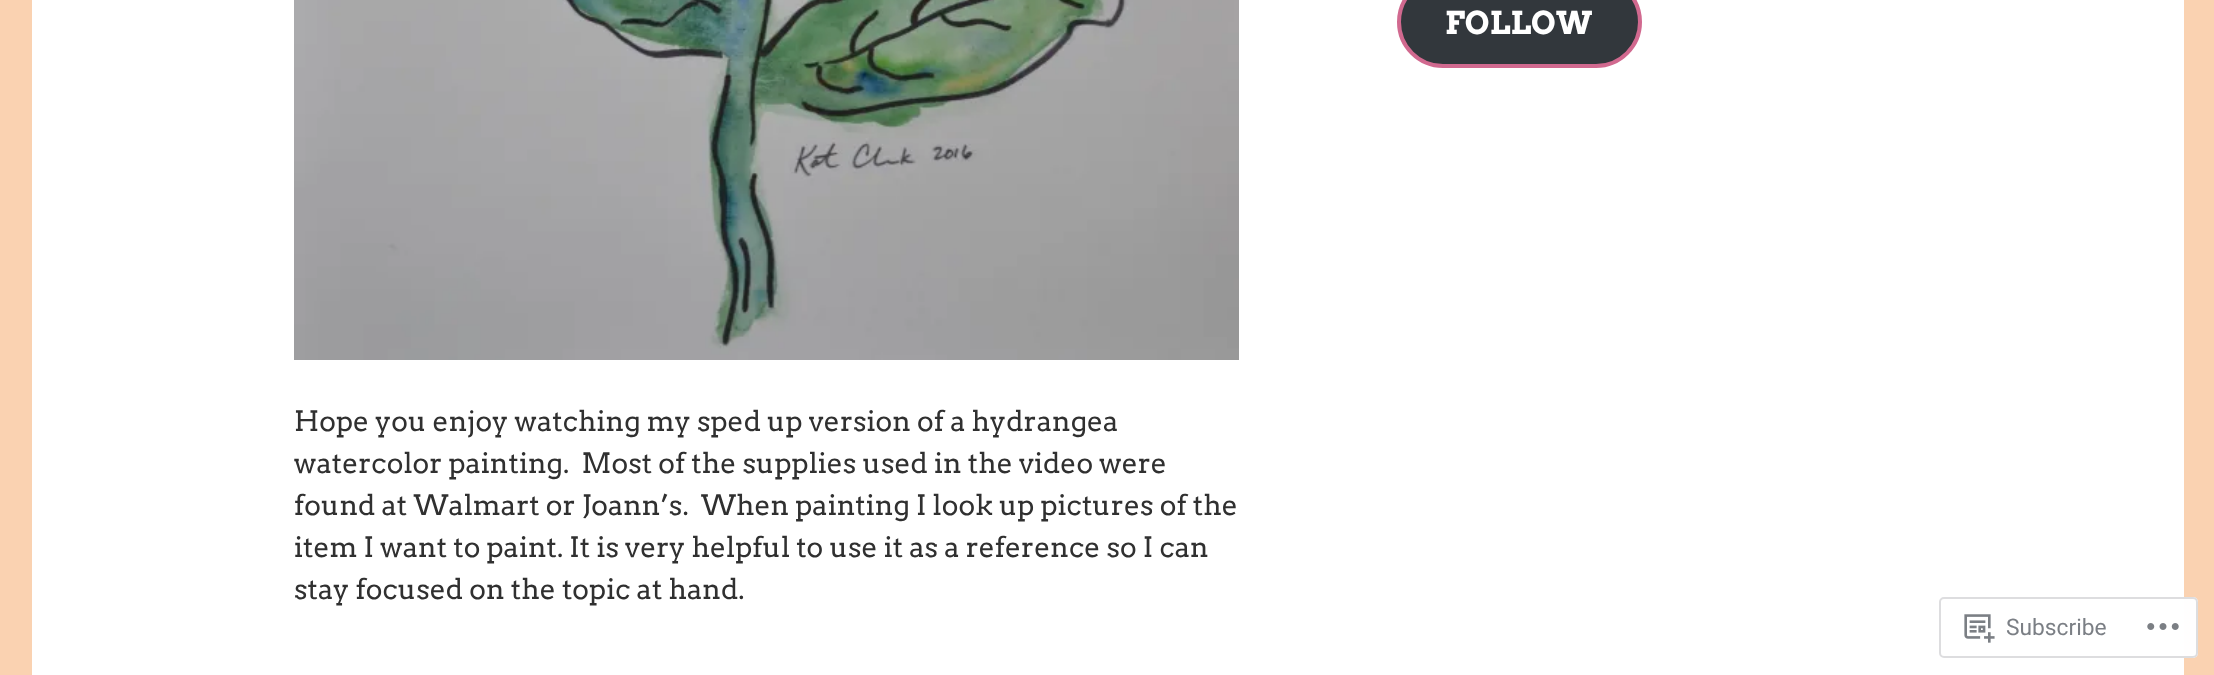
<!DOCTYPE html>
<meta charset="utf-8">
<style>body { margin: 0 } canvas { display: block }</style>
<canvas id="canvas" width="2214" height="675"></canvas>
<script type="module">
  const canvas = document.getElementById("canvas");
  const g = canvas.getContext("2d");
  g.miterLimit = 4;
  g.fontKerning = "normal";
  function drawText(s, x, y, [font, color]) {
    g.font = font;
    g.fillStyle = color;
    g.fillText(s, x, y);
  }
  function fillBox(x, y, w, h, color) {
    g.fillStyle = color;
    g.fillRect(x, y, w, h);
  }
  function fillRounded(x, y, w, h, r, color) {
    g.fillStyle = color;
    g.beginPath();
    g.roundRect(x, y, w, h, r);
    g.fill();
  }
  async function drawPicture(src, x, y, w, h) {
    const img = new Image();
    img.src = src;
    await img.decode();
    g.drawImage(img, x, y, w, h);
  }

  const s1 = ["bold 31.5px Arvo", "#FFFFFF"];
  const s2 = ["28px Arvo", "#303030"];
  const s3 = ["22.75px Roboto", "#7B7F85"];

  fillBox(0, 0, 2214, 675, "#FAD2B1");
  fillBox(32, 0, 2152, 675, "#FFFFFF");
  g.fillStyle = "#32373C";
  g.beginPath();
  g.roundRect(1399, -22, 241, 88, 44);
  g.fill();
  g.strokeStyle = "#D1698F";
  g.lineWidth = 4;
  g.stroke();
  drawText("FOLLOW", 1445, 34, s1);
  await drawPicture("pic1.png", 294, 0, 945, 360);
  drawText("Hope you enjoy watching my sped up version of a hydrangea", 294, 431, s2);
  drawText("watercolor painting.  Most of the supplies used in the video were", 294, 473, s2);
  drawText("found at Walmart or Joann’s.  When painting I look up pictures of the", 294, 515, s2);
  drawText("item I want to paint. It is very helpful to use it as a reference so I can", 294, 557, s2);
  drawText("stay focused on the topic at hand.", 294, 599, s2);
  fillRounded(1939, 597, 259, 61, 5, "rgba(255, 255, 255, 0.98)");
  g.beginPath();
  g.roundRect(1940, 598, 257, 59, 4);
  g.strokeStyle = "rgba(220, 220, 222, 0.98)";
  g.lineWidth = 2;
  g.stroke();
  await drawPicture("pic2.png", 1964, 614, 31, 29);
  drawText("Subscribe", 2006, 635, s3);
  await drawPicture("pic3.png", 2147, 623, 32, 7);
</script>
